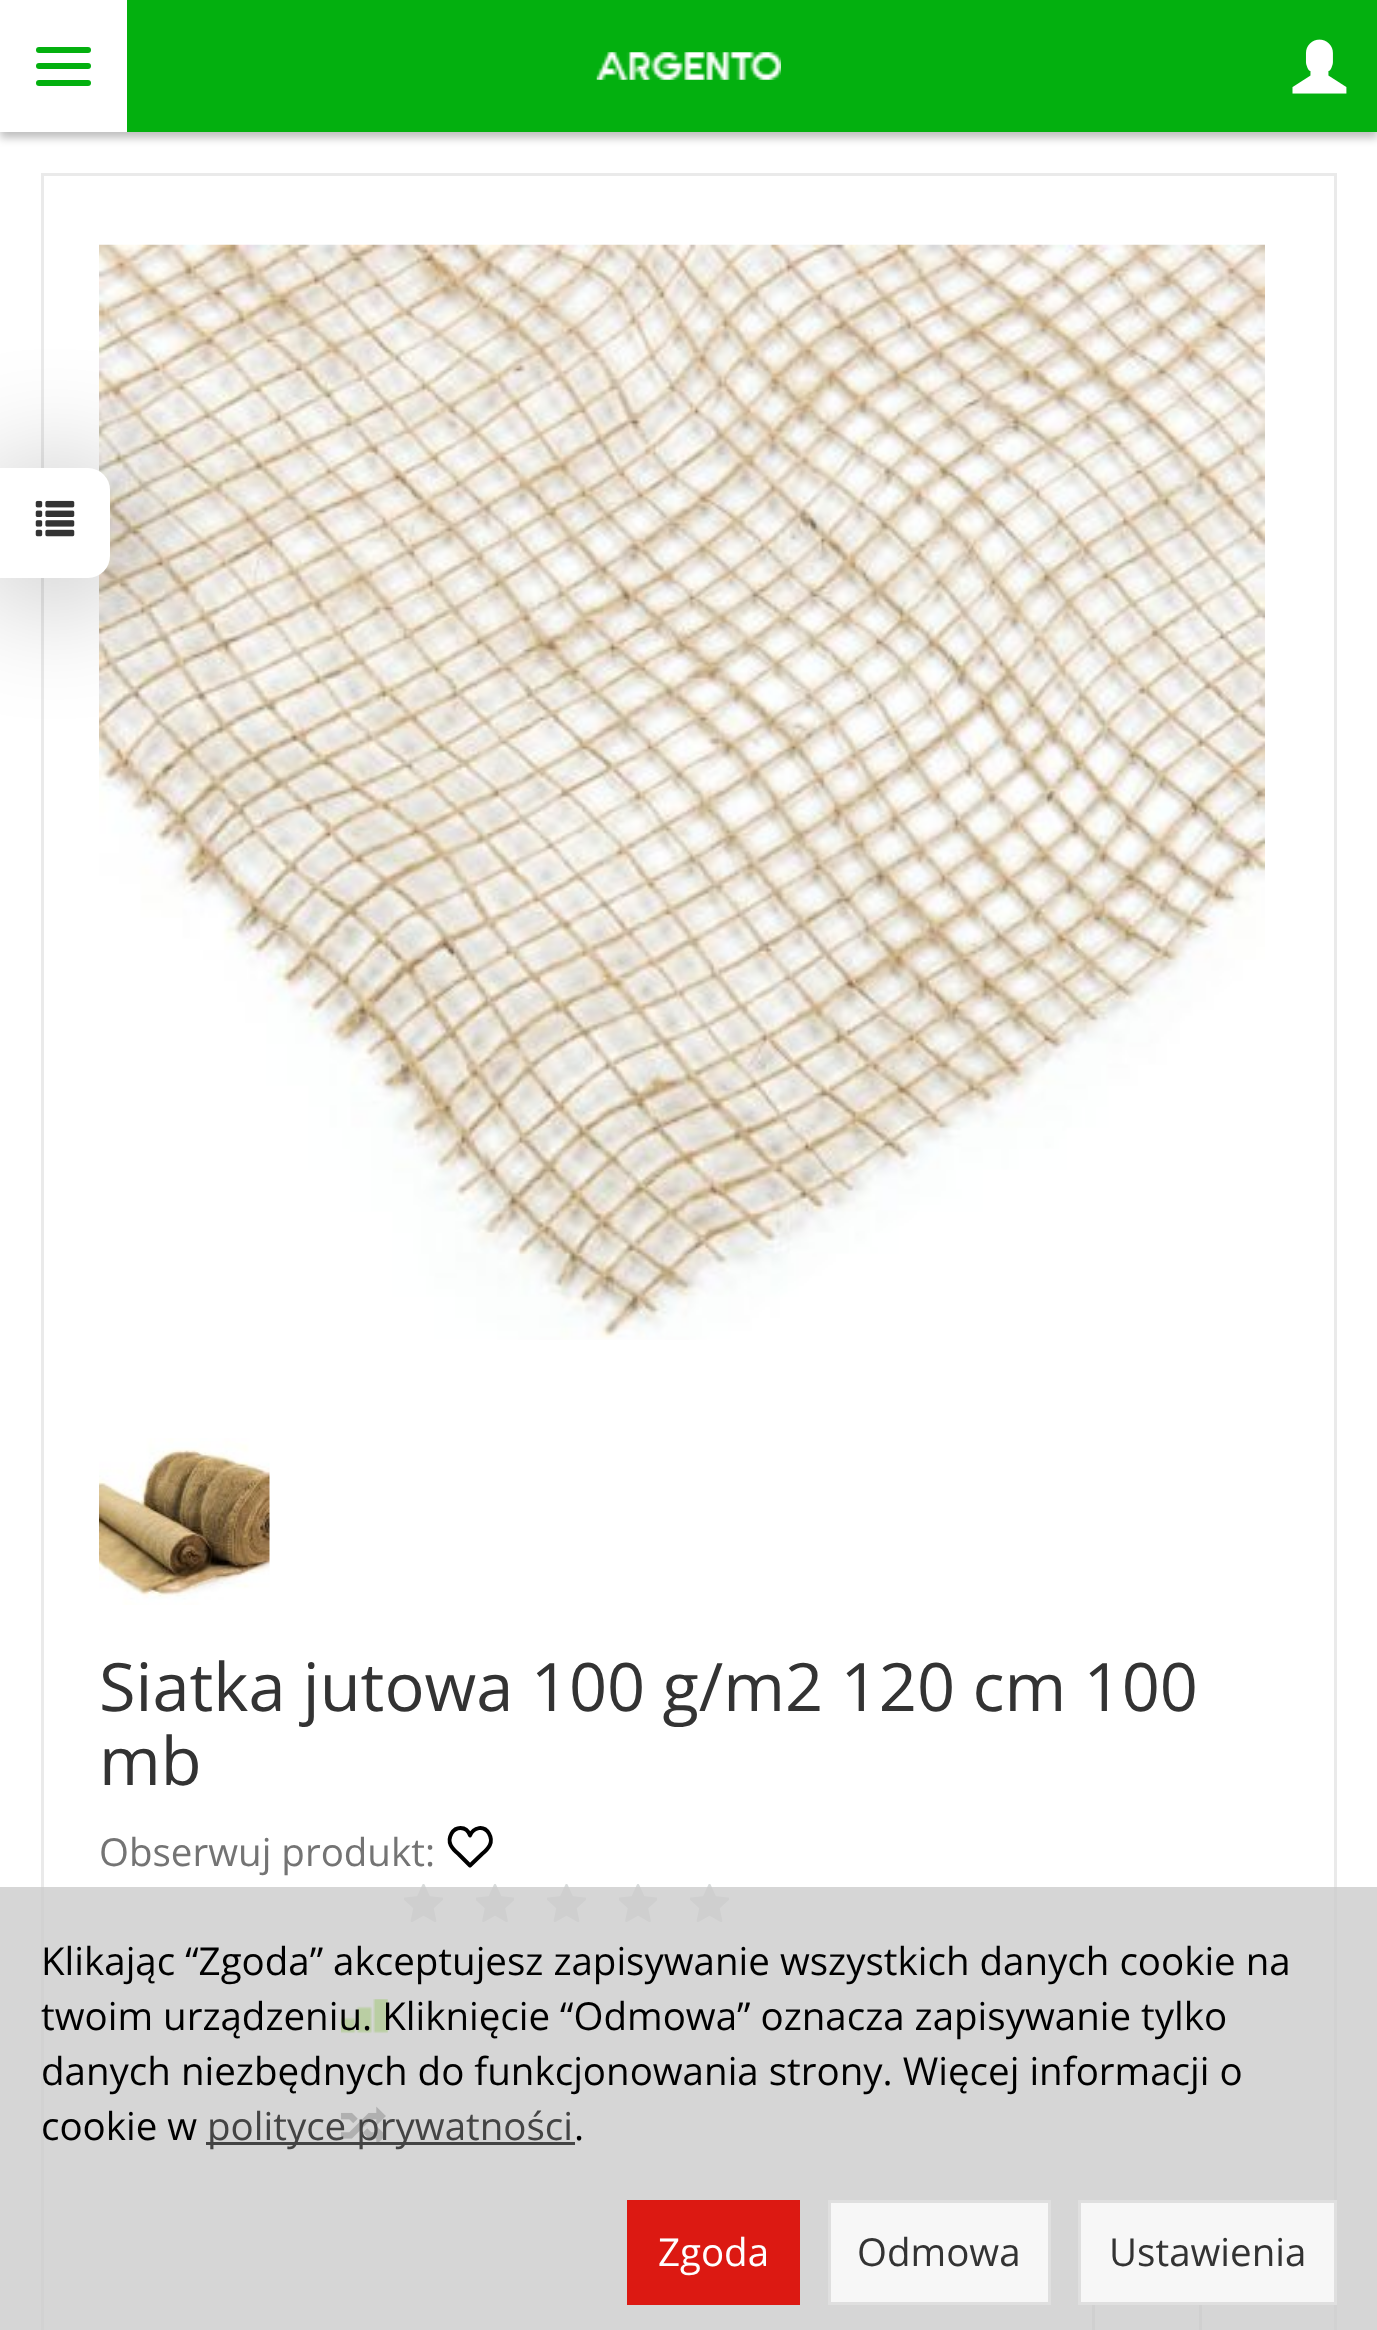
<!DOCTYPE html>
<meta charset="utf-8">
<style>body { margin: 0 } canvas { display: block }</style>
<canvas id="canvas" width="1377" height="2330"></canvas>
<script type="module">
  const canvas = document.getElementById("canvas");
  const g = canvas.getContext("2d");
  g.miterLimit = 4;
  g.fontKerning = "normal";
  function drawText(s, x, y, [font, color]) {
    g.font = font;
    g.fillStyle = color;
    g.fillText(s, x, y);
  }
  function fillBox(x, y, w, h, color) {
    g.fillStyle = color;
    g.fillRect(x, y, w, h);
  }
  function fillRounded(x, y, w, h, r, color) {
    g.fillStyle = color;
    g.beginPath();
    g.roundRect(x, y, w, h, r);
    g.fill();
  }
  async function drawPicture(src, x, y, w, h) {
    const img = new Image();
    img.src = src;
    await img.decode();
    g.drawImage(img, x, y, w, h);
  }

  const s1 = ["66.75px Open Sans", "#333333"];
  const s2 = ["38.5px Open Sans", "#747474"];
  const s3 = ["38.5px Open Sans", "#000000"];
  const s4 = ["38.5px Open Sans", "#444444"];
  const s5 = ["38.5px Open Sans", "#FFFFFF"];
  const s6 = ["38.5px Open Sans", "#333333"];

  fillBox(0, 0, 1377, 2330, "#FFFFFF");
  g.fillStyle = "rgba(0, 0, 0, 0.25)";
  g.filter = "blur(4px)";
  g.beginPath();
  g.rect(0, 6, 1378, 132);
  g.fill();
  g.filter = "none";
  fillBox(127, 0, 1250, 132, "#03B00F");
  fillBox(0, 0, 127, 132, "#FFFFFF");
  fillRounded(36, 47, 55, 6, 3, "#03B00F");
  fillRounded(36, 63, 55, 6, 3, "#03B00F");
  fillRounded(36, 80, 55, 6, 3, "#03B00F");
  await drawPicture("pic1.png", 596, 52, 185, 28);
  await drawPicture("pic2.png", 1292, 39, 55, 55);
  g.strokeStyle = "#EAEAEA";
  g.lineWidth = 3;
  g.strokeRect(42.5, 174.5, 1293, 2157);
  await drawPicture("pic4.png", 99, 244, 1166, 1096);
  g.fillStyle = "rgba(0, 0, 0, 0.35)";
  g.filter = "blur(62px)";
  g.beginPath();
  g.roundRect(0, 479, 110, 110, 22);
  g.fill();
  g.filter = "none";
  g.fillStyle = "#FFFFFF";
  g.beginPath();
  g.roundRect(0, 468, 110, 110, [0, 22, 22, 0]);
  g.fill();
  await drawPicture("pic3.png", 35, 500, 40, 37);
  await drawPicture("pic5.png", 99, 1438, 171, 167);
  drawText("Siatka jutowa 100 g/m2 120 cm 100", 99, 1711, s1);
  drawText("mb", 99, 1785, s1);
  drawText("Obserwuj produkt:", 99, 1866, s2);
  g.beginPath();
  g.moveTo(460.5, 1828);
  g.bezierCurveTo(456.5, 1828, 453.5, 1830, 451.5, 1833.5);
  g.bezierCurveTo(446.5, 1842.5, 452, 1848.5, 458.5, 1854);
  g.lineTo(470, 1865.5);
  g.lineTo(482, 1854);
  g.bezierCurveTo(488.5, 1848.5, 494, 1842.5, 489, 1833.5);
  g.bezierCurveTo(484, 1825, 473.5, 1827, 470, 1835.5);
  g.bezierCurveTo(468.5, 1831, 465, 1828, 460.5, 1828);
  g.closePath();
  g.strokeStyle = "#000000";
  g.lineWidth = 3.9;
  g.lineJoin = "round";
  g.stroke();
  await drawPicture("pic6.png", 404, 1884, 39, 38);
  await drawPicture("pic7.png", 476, 1884, 38, 38);
  await drawPicture("pic6.png", 547, 1884, 39, 38);
  await drawPicture("pic7.png", 619, 1884, 38, 38);
  await drawPicture("pic6.png", 690, 1884, 39, 38);
  await drawPicture("pic8.png", 341, 1999, 47, 35);
  await drawPicture("pic9.png", 341, 2106, 45, 36);
  g.strokeStyle = "#DFDFDF";
  g.lineWidth = 3;
  g.lineJoin = "miter";
  g.strokeRect(1093.5, 2253.5, 107, 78);
  fillBox(0, 1887, 1377, 443, "rgba(204, 204, 204, 0.8)");
  drawText("Klikając “Zgoda” akceptujesz zapisywanie wszystkich danych cookie na", 41, 1975, s3);
  drawText("twoim urządzeniu. Kliknięcie “Odmowa” oznacza zapisywanie tylko", 41, 2030, s3);
  drawText("danych niezbędnych do funkcjonowania strony. Więcej informacji o", 41, 2085, s3);
  drawText("cookie w", 41, 2140, s3);
  fillBox(206, 2142, 369, 3, "#444444");
  drawText("polityce prywatności", 207, 2140, s4);
  drawText(".", 574, 2140, s3);
  fillBox(627, 2200, 173, 105, "#DC1912");
  drawText("Zgoda", 658, 2266, s5);
  g.fillStyle = "#F7F7F7";
  g.beginPath();
  g.rect(829.5, 2201.5, 220, 102);
  g.fill();
  g.stroke();
  drawText("Odmowa", 857, 2266, s6);
  g.fillStyle = "#F7F7F7";
  g.beginPath();
  g.rect(1079.5, 2201.5, 256, 102);
  g.fill();
  g.stroke();
  drawText("Ustawienia", 1109, 2266, s6);
</script>
